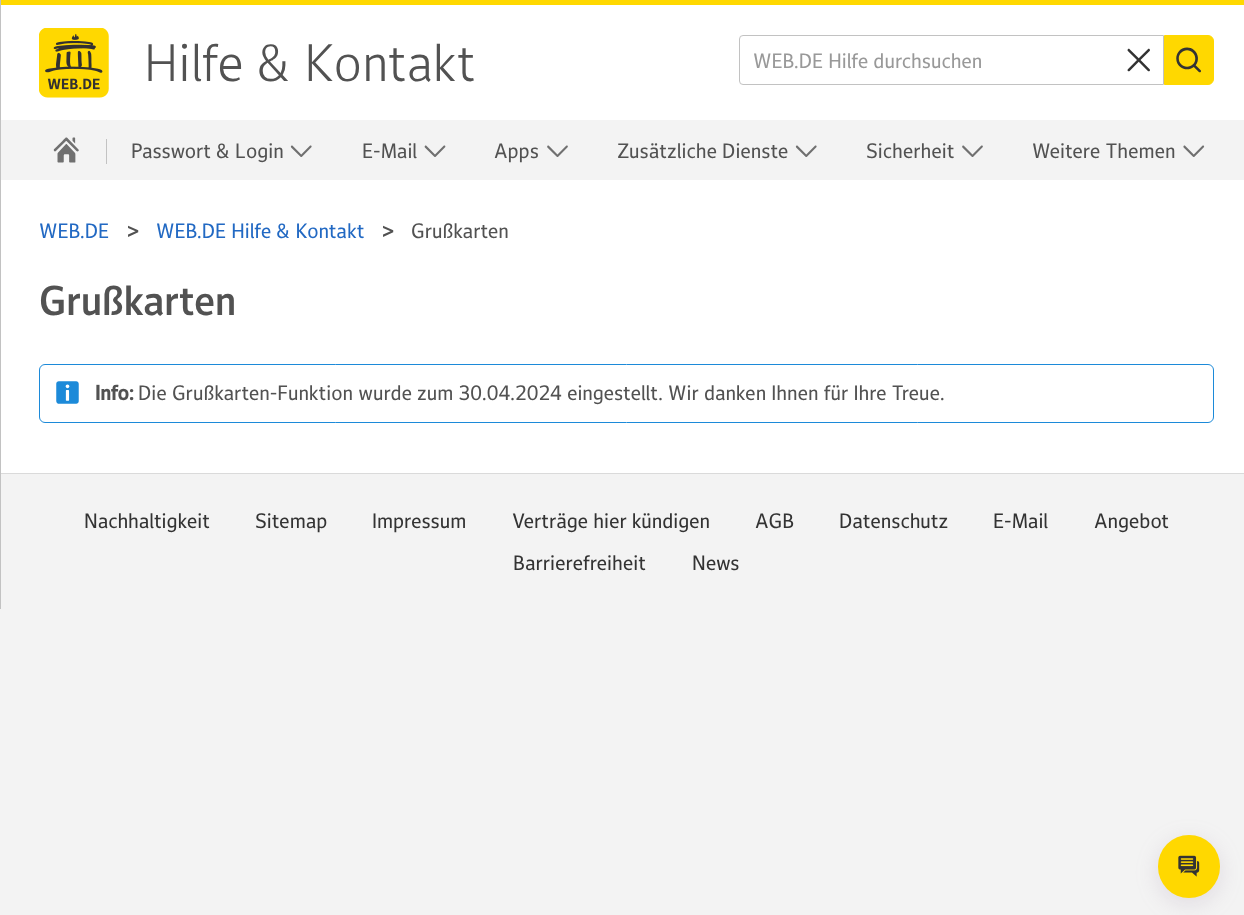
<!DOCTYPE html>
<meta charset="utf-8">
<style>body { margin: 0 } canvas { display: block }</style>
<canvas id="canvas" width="1244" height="915"></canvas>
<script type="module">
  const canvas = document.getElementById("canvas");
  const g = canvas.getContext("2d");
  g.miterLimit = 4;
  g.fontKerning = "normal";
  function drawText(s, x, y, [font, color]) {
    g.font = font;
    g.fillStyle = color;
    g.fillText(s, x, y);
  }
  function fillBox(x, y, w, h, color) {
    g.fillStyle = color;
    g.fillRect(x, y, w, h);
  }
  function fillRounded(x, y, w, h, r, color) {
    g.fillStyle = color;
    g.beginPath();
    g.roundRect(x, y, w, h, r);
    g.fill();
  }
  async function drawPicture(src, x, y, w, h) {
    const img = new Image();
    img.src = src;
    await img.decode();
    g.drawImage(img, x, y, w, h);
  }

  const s1 = ["50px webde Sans", "#525252"];
  const s2 = ["20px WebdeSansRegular", "#999999"];
  const s3 = ["20px WebdeSansRegular", "#525252"];
  const s4 = ["20px WebdeSansRegular", "#2269C3"];
  const s5 = ["bold 20px WebdeSansRegular", "#525252"];
  const s6 = ["40px 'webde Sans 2'", "#525252"];
  const s7 = ["bold 20px webde Sans", "#525252"];
  const s8 = ["20px WebdeSansRegular", "#333333"];

  fillBox(0, 0, 1244, 915, "#F3F3F3");
  fillBox(1, 5, 1243, 468, "#FFFFFF");
  fillBox(0, 0, 1, 609, "#C2C2C2");
  fillBox(1, 0, 1243, 5, "#FFD800");
  await drawPicture("pic1.png", 39, 28, 70, 70);
  drawText("Hilfe & Kontakt", 144, 81, s1);
  g.beginPath();
  g.roundRect(739.5, 35.5, 424, 49, [3.5, 0, 0, 3.5]);
  g.strokeStyle = "#C2C2C2";
  g.stroke();
  drawText("WEB.DE Hilfe durchsuchen", 753, 68, s2);
  await drawPicture("pic2.png", 1127, 48, 23, 24);
  g.fillStyle = "#FFD800";
  g.beginPath();
  g.roundRect(1164.5, 35.5, 49, 49, [0, 5.5, 5.5, 0]);
  g.fill();
  g.strokeStyle = "#FFD800";
  g.stroke();
  await drawPicture("pic3.png", 1176, 47, 25, 26);
  fillBox(1, 120, 1243, 60, "#F3F3F3");
  await drawPicture("pic4.png", 53, 137, 26, 26);
  fillBox(106, 139, 1, 25, "#C2C2C2");
  drawText("Passwort & Login", 131, 158, s3);
  await drawPicture("pic5.png", 290, 145, 22, 12);
  drawText("E-Mail", 362, 158, s3);
  await drawPicture("pic6.png", 424, 145, 22, 12);
  drawText("Apps", 494, 158, s3);
  await drawPicture("pic7.png", 547, 145, 21, 12);
  drawText("Zusätzliche Dienste", 617, 158, s3);
  await drawPicture("pic5.png", 795, 145, 22, 12);
  drawText("Sicherheit", 866, 158, s3);
  await drawPicture("pic7.png", 962, 145, 21, 12);
  drawText("Weitere Themen", 1032, 158, s3);
  await drawPicture("pic8.png", 1183, 145, 22, 12);
  drawText("WEB.DE", 39, 238, s4);
  drawText(">", 127, 238, s5);
  drawText("WEB.DE Hilfe & Kontakt", 156, 238, s4);
  drawText(">", 382, 238, s5);
  drawText("Grußkarten", 411, 238, s3);
  drawText("Grußkarten", 39, 315, s6);
  g.beginPath();
  g.roundRect(39.5, 364.5, 1174, 58, 5.5);
  g.strokeStyle = "#1C8AD9";
  g.stroke();
  await drawPicture("pic9.png", 56, 381, 23, 23);
  drawText("Info:", 95, 400, s7);
  drawText("Die Grußkarten-Funktion wurde zum 30.04.2024 eingestellt. Wir danken Ihnen für Ihre Treue.", 138, 400, s3);
  fillBox(1, 473, 1243, 1, "#DADADA");
  drawText("Nachhaltigkeit", 84, 528, s8);
  drawText("Sitemap", 255, 528, s8);
  drawText("Impressum", 372, 528, s8);
  drawText("Verträge hier kündigen", 512, 528, s8);
  drawText("AGB", 755, 528, s8);
  drawText("Datenschutz", 839, 528, s8);
  drawText("E-Mail", 993, 528, s8);
  drawText("Angebot", 1094, 528, s8);
  drawText("Barrierefreiheit", 513, 570, s8);
  drawText("News", 692, 570, s8);
  g.fillStyle = "rgba(151, 124, 156, 0.2)";
  g.filter = "blur(11px)";
  g.beginPath();
  g.roundRect(1158, 841, 62, 63, 31);
  g.fill();
  g.filter = "none";
  fillRounded(1158, 835, 62, 63, 31, "#FFD800");
  await drawPicture("pic10.png", 1178, 855, 22, 22);
</script>
